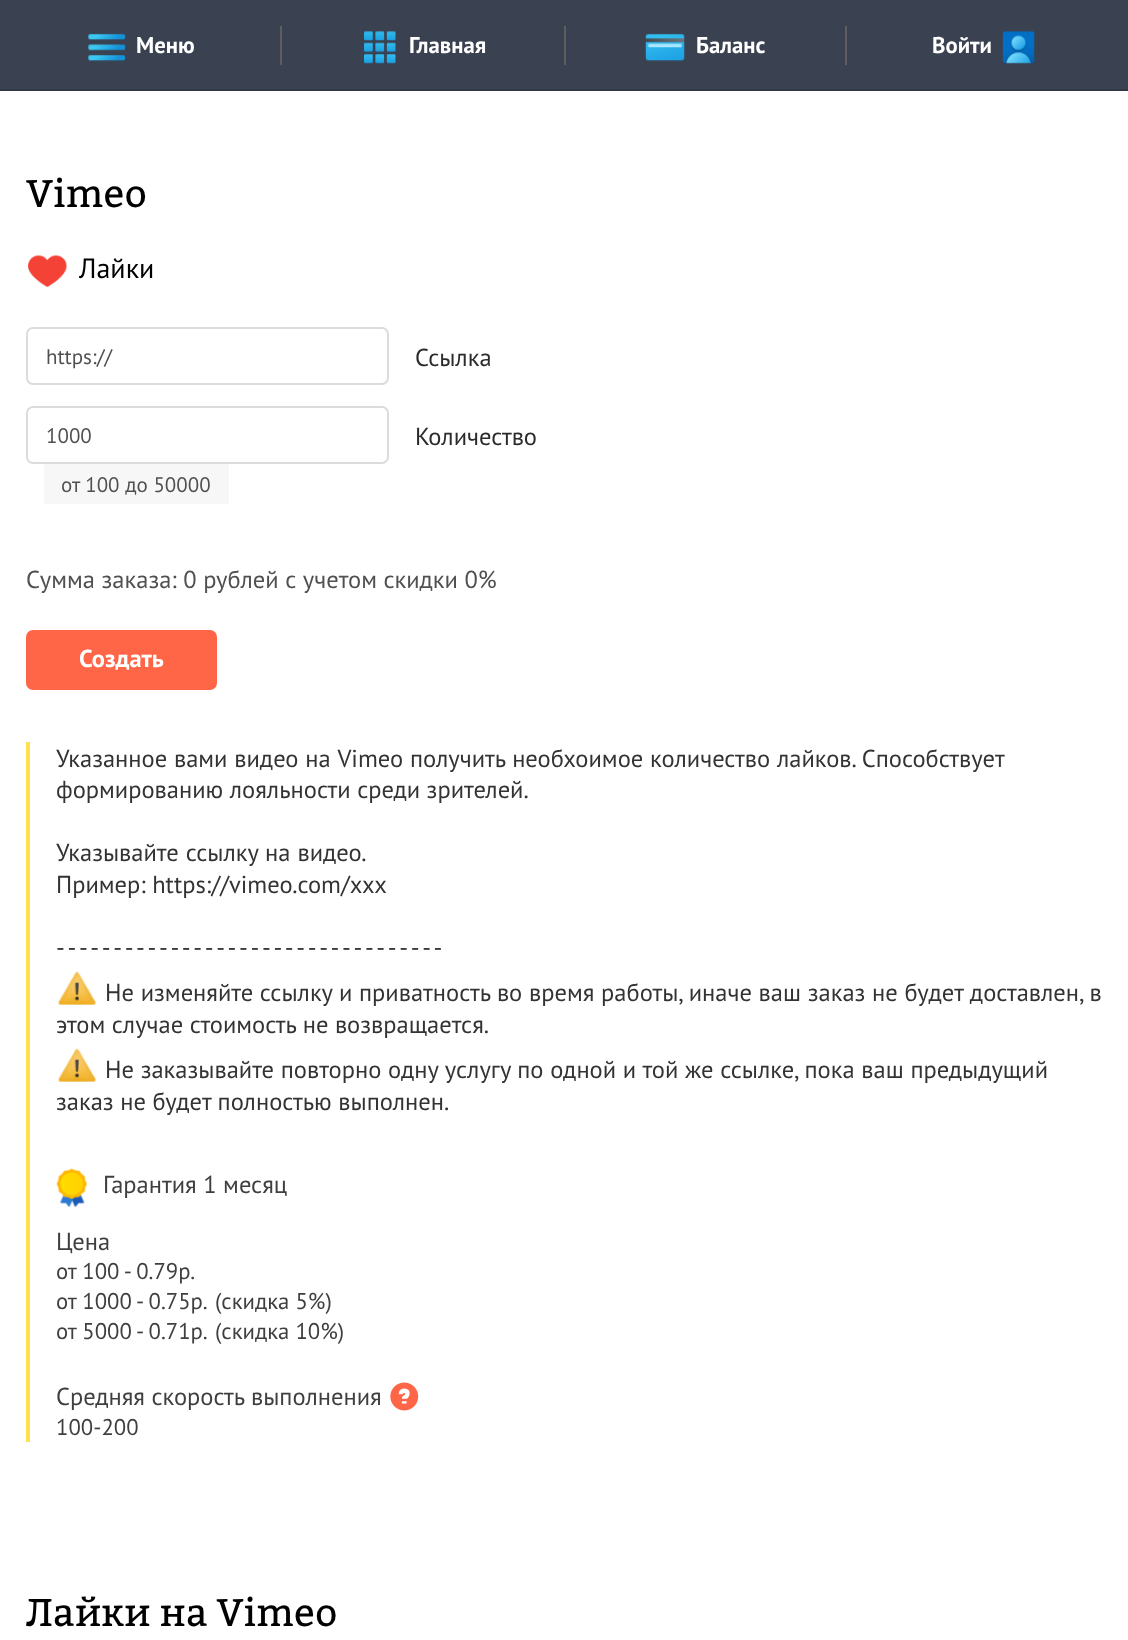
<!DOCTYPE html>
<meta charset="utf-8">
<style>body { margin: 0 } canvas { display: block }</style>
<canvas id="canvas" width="1128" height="1640"></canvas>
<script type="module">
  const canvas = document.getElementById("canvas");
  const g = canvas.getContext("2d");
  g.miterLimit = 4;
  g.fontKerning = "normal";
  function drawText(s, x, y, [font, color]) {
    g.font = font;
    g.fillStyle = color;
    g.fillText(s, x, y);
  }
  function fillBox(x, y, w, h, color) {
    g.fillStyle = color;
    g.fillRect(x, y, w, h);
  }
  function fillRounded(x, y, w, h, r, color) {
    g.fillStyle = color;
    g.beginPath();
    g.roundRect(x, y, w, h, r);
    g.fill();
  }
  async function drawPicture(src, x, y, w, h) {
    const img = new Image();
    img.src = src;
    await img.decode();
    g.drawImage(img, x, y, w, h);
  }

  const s1 = ["bold 22.75px PT Sans", "#FFFFFF"];
  const s2 = ["38.5px Bitter", "#000000"];
  const s3 = ["28px PT Sans", "#000000"];
  const s4 = ["21px PT Sans", "#505050"];
  const s5 = ["24.5px PT Sans", "#2B2B2B"];
  const s6 = ["24.5px PT Sans", "#505050"];
  const s7 = ["bold 24.5px PT Sans", "#FFFFFF"];
  const s8 = ["24.5px PT Sans", "#333333"];
  const s9 = ["24.5px PT Sans", "#3F3F3F"];
  const s10 = ["22.75px PT Sans", "#3F3F3F"];

  fillBox(0, 0, 1128, 1640, "#FFFFFF");
  fillBox(0, 0, 1128, 89, "#3A4151");
  fillBox(0, 89, 1128, 2, "#323745");
  fillBox(280, 26, 2, 39, "#5E5E5E");
  await drawPicture("pic1.png", 88, 33, 38, 29);
  drawText("Меню", 136, 53, s1);
  fillBox(564, 26, 2, 39, "#5E5E5E");
  await drawPicture("pic2.png", 364, 31, 32, 33);
  drawText("Главная", 409, 53, s1);
  fillBox(845, 26, 2, 39, "#5E5E5E");
  await drawPicture("pic3.png", 645, 33, 40, 29);
  drawText("Баланс", 696, 53, s1);
  drawText("Войти", 932, 53, s1);
  await drawPicture("pic4.png", 1002, 31, 33, 33);
  drawText("Vimeo", 26, 207, s2);
  await drawPicture("pic5.png", 28, 255, 39, 32);
  drawText("Лайки", 79, 278, s3);
  g.beginPath();
  g.roundRect(27, 328, 361, 56, 6);
  g.strokeStyle = "#DCDCDC";
  g.lineWidth = 2;
  g.stroke();
  drawText("https://", 46, 364, s4);
  drawText("Ссылка", 415, 366, s5);
  g.beginPath();
  g.roundRect(27, 407, 361, 56, 6);
  g.stroke();
  drawText("1000", 46, 443, s4);
  fillBox(44, 464, 185, 40, "#F7F7F7");
  drawText("от 100 до 50000", 61, 492, s4);
  drawText("Количество", 415, 445, s5);
  drawText("Сумма заказа: 0 рублей с учетом скидки 0%", 26, 588, s6);
  fillRounded(26, 630, 191, 60, 7, "#FF6647");
  drawText("Создать", 79, 667, s7);
  fillBox(26, 742, 4, 700, "#FEE14F");
  g.wordSpacing = "0.25px";
  drawText("Указанное вами видео на Vimeo получить необхоимое количество лайков. Способствует", 56, 767, s8);
  g.wordSpacing = "0px";
  drawText("формированию лояльности среди зрителей.", 56, 798, s8);
  g.wordSpacing = "0.5px";
  drawText("Указывайте ссылку на видео.", 56, 861, s8);
  g.wordSpacing = "0px";
  drawText("Пример: https://vimeo.com/xxx", 56, 893, s8);
  drawText("- - - - - - - - - - - - - - - - - - - - - - - - - - - - - - - - - -", 56, 956, s8);
  await drawPicture("pic6.png", 58, 971, 38, 34);
  g.wordSpacing = "0.2px";
  drawText("Не изменяйте ссылку и приватность во время работы, иначе ваш заказ не будет доставлен, в", 105, 1001, s8);
  g.wordSpacing = "0px";
  drawText("этом случае стоимость не возвращается.", 56, 1033, s8);
  await drawPicture("pic6.png", 58, 1048, 38, 34);
  g.wordSpacing = "0.2px";
  drawText("Не заказывайте повторно одну услугу по одной и той же ссылке, пока ваш предыдущий", 105, 1078, s8);
  g.wordSpacing = "0px";
  drawText("заказ не будет полностью выполнен.", 56, 1110, s8);
  await drawPicture("pic7.png", 56, 1168, 31, 39);
  drawText("Гарантия 1 месяц", 103, 1193, s9);
  drawText("Цена", 56, 1250, s9);
  drawText("от 100 - 0.79р.", 56, 1279, s10);
  drawText("от 1000 - 0.75р.", 56, 1309, s10);
  drawText("(скидка 5%)", 215, 1309, s10);
  drawText("от 5000 - 0.71р.", 56, 1339, s10);
  drawText("(скидка 10%)", 215, 1339, s10);
  drawText("Средняя скорость выполнения", 56, 1405, s9);
  await drawPicture("pic8.png", 390, 1382, 29, 29);
  drawText("100-200", 56, 1435, s10);
  drawText("Лайки на Vimeo", 26, 1626, s2);
</script>
